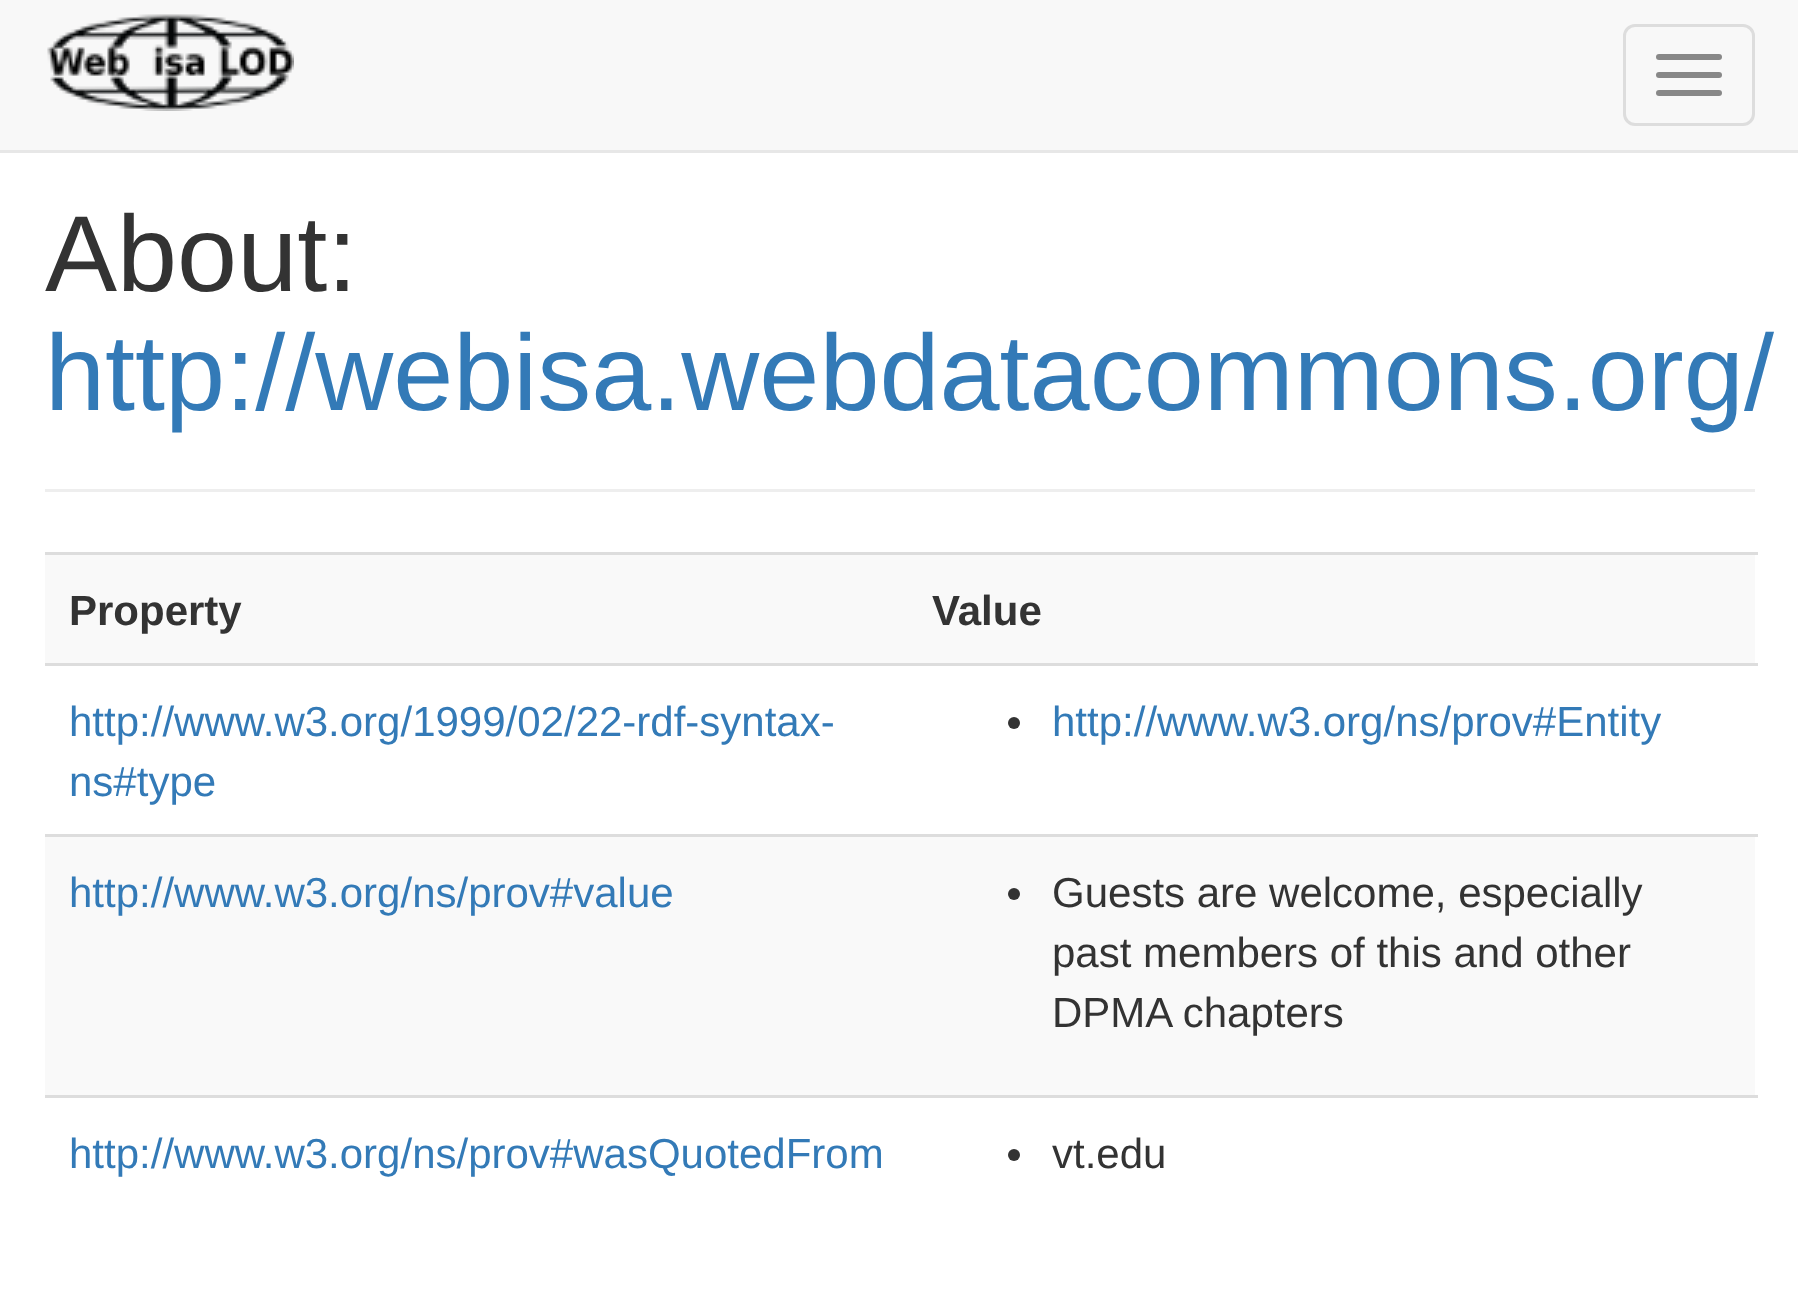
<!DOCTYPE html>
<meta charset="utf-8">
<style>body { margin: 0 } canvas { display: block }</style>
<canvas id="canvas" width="1798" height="1301"></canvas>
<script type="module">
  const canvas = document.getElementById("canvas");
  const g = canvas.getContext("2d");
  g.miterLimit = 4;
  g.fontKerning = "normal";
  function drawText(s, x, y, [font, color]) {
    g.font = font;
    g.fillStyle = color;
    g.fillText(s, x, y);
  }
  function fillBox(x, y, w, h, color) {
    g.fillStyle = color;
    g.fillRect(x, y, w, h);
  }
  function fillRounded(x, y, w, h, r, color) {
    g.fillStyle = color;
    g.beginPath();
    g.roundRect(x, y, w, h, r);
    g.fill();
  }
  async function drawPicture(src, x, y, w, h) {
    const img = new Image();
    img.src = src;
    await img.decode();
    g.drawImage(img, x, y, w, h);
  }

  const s1 = ["108px Liberation Sans", "#333333"];
  const s2 = ["108px Liberation Sans", "#337AB7"];
  const s3 = ["bold 42px Liberation Sans", "#333333"];
  const s4 = ["42px Liberation Sans", "#337AB7"];
  const s5 = ["42px Liberation Sans", "#333333"];

  fillBox(0, 0, 1798, 1301, "#FFFFFF");
  fillBox(0, 0, 1798, 150, "#F8F8F8");
  fillBox(0, 150, 1798, 3, "#E7E7E7");
  await drawPicture("pic1.png", 47, 14, 247, 97);
  g.beginPath();
  g.roundRect(1624.5, 25.5, 129, 99, 10.5);
  g.strokeStyle = "#DDDDDD";
  g.lineWidth = 3;
  g.stroke();
  fillRounded(1656, 54, 66, 6, 3, "#888888");
  fillRounded(1656, 72, 66, 6, 3, "#888888");
  fillRounded(1656, 90, 66, 6, 3, "#888888");
  fillBox(45, 489, 1710, 3, "#EEEEEE");
  drawText("About:", 45, 291, s1);
  drawText("http://webisa.webdatacommons.org/", 45, 410, s2);
  fillBox(45, 555, 1710, 108, "#F9F9F9");
  drawText("Property", 69, 625, s3);
  fillBox(45, 552, 1713, 3, "#DDDDDD");
  drawText("Value", 932, 625, s3);
  drawText("http://www.w3.org/1999/02/22-rdf-syntax-", 69, 736, s4);
  drawText("ns#type", 69, 796, s4);
  fillBox(45, 663, 1713, 3, "#DDDDDD");
  g.fillStyle = "#333333";
  g.beginPath();
  g.arc(1014, 723, 6, 0, Math.PI * 2);
  g.fill();
  drawText("http://www.w3.org/ns/prov#Entity", 1052, 736, s4);
  fillBox(45, 837, 1710, 258, "#F9F9F9");
  drawText("http://www.w3.org/ns/prov#value", 69, 907, s4);
  fillBox(45, 834, 1713, 3, "#DDDDDD");
  g.fillStyle = "#333333";
  g.beginPath();
  g.arc(1014, 894, 6, 0, Math.PI * 2);
  g.fill();
  drawText("Guests are welcome, especially", 1052, 907, s5);
  drawText("past members of this and other", 1052, 967, s5);
  drawText("DPMA chapters", 1052, 1027, s5);
  drawText("http://www.w3.org/ns/prov#wasQuotedFrom", 69, 1168, s4);
  fillBox(45, 1095, 1713, 3, "#DDDDDD");
  g.fillStyle = "#333333";
  g.beginPath();
  g.arc(1014, 1155, 6, 0, Math.PI * 2);
  g.fill();
  drawText("vt.edu", 1052, 1168, s5);
</script>
